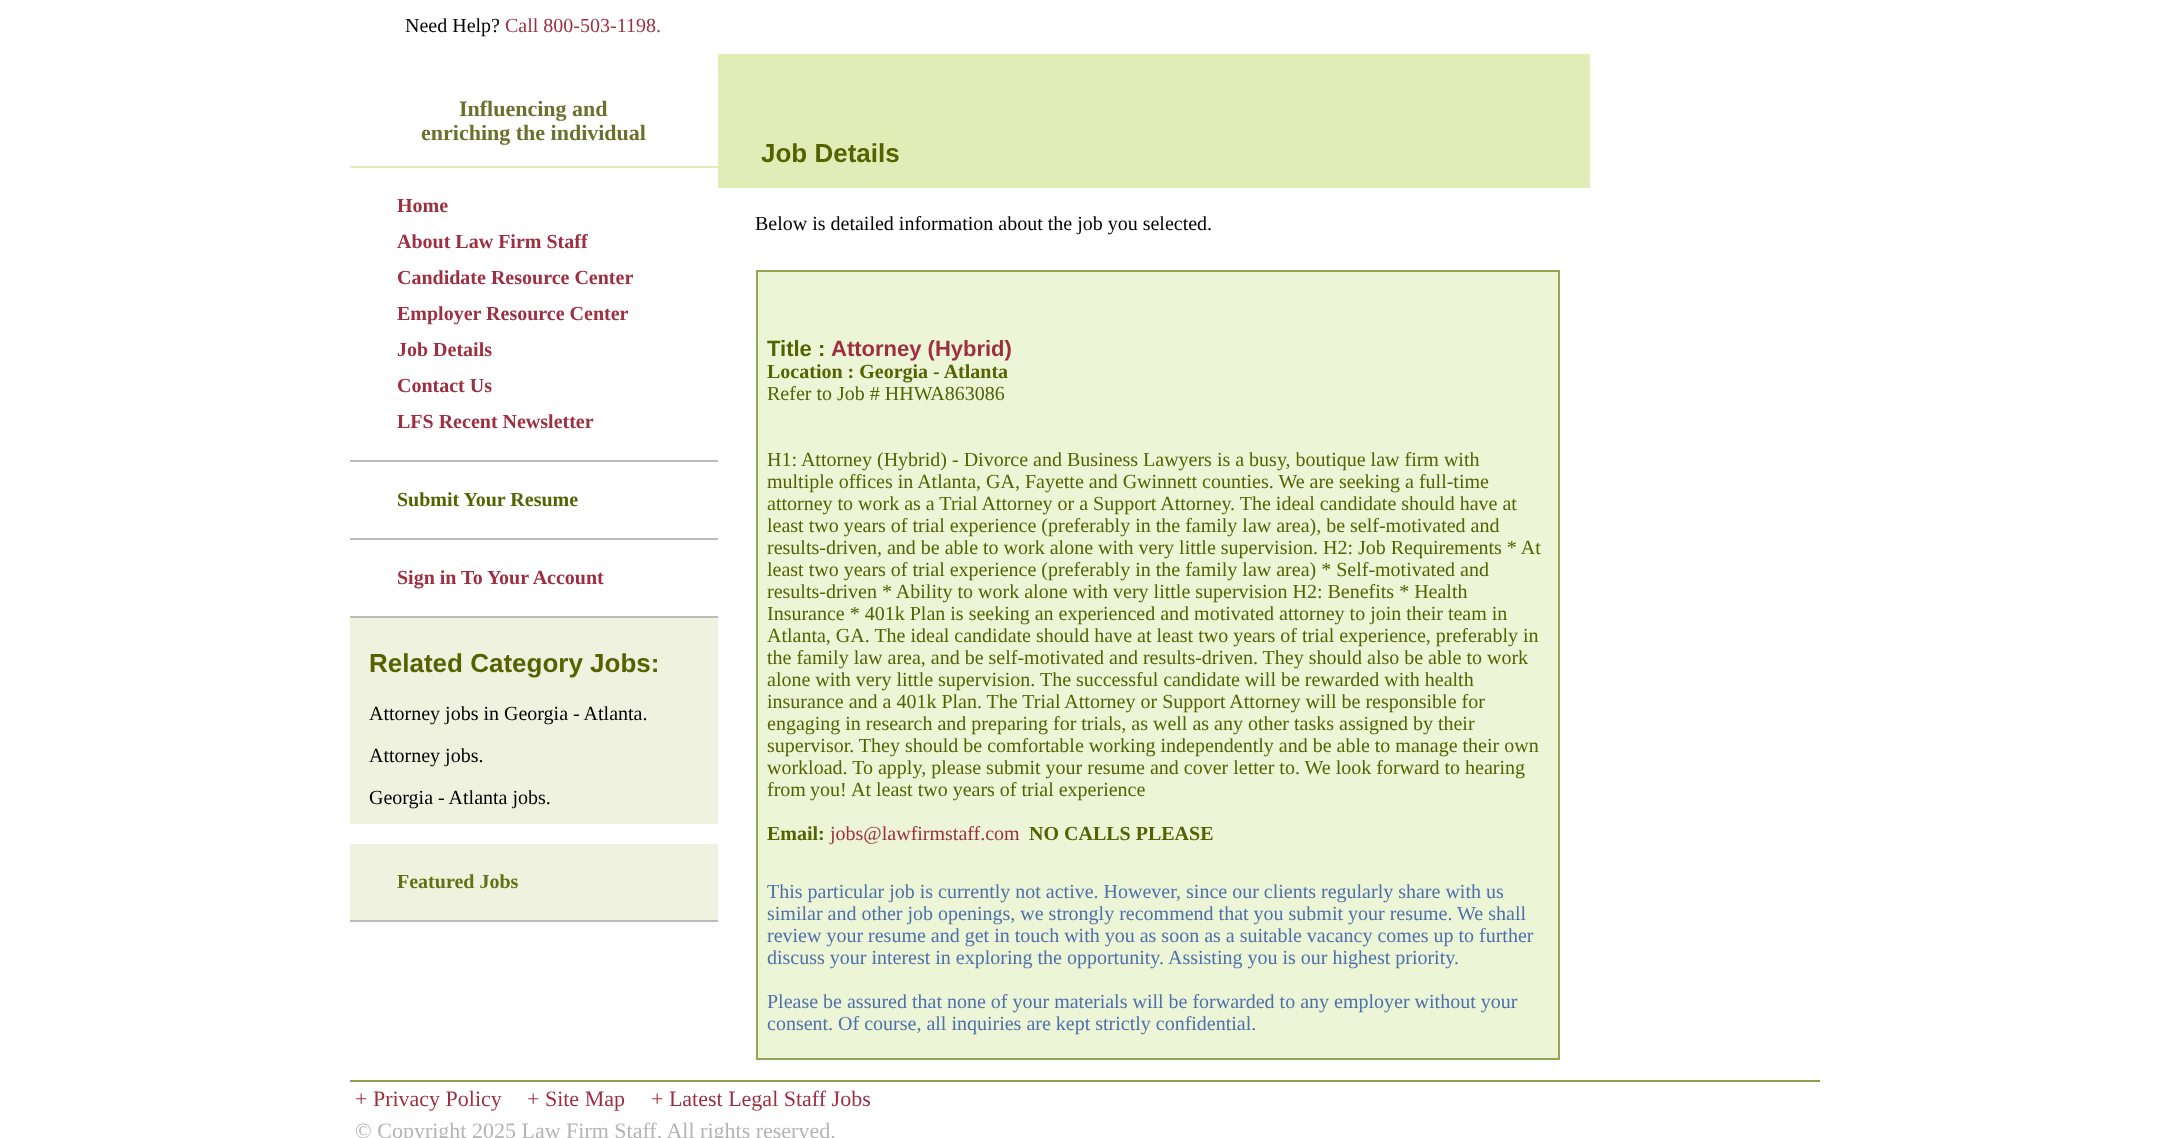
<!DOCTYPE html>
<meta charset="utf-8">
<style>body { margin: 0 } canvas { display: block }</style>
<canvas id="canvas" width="2168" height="1138"></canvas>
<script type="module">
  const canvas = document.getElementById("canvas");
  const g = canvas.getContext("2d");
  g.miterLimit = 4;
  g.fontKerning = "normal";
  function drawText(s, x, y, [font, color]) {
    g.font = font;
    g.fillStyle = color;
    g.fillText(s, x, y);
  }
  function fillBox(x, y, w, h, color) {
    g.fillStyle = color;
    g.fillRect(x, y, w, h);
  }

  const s1 = ["20px Liberation Serif", "#000000"];
  const s2 = ["20px Liberation Serif", "#9E2F40"];
  const s3 = ["bold 22px Liberation Serif", "#6C702D"];
  const s4 = ["bold 20px Liberation Serif", "#9E2F40"];
  const s5 = ["bold 20px Liberation Serif", "#546300"];
  const s6 = ["bold 26px Liberation Sans", "#546300"];
  const s7 = ["bold 20px Liberation Serif", "#637112"];
  const s8 = ["bold 22px Liberation Sans", "#546300"];
  const s9 = ["bold 22px Liberation Sans", "#9E2F40"];
  const s10 = ["20px Liberation Serif", "#546300"];
  const s11 = ["20px Liberation Serif", "#4E70AC"];
  const s12 = ["22px Liberation Serif", "#9E2F40"];
  const s13 = ["22px Liberation Serif", "#B4B4B4"];

  fillBox(0, 0, 2168, 1138, "#FFFFFF");
  fillBox(350, 1080, 1470, 2, "#8F9E4B");
  drawText("Need Help?", 405, 32, s1);
  drawText("Call 800-503-1198.", 505, 32, s2);
  fillBox(350, 166, 368, 2, "#E2ECB7");
  drawText("Influencing and", 459, 116, s3);
  drawText("enriching the individual", 421, 140, s3);
  fillBox(350, 460, 368, 2, "#BCBCBC");
  drawText("Home", 397, 212, s4);
  drawText("About Law Firm Staff", 397, 248, s4);
  drawText("Candidate Resource Center", 397, 284, s4);
  drawText("Employer Resource Center", 397, 320, s4);
  drawText("Job Details", 397, 356, s4);
  drawText("Contact Us", 397, 392, s4);
  drawText("LFS Recent Newsletter", 397, 428, s4);
  fillBox(350, 538, 368, 2, "#BCBCBC");
  drawText("Submit Your Resume", 397, 506, s5);
  fillBox(350, 616, 368, 2, "#BCBCBC");
  drawText("Sign in To Your Account", 397, 584, s4);
  fillBox(350, 618, 368, 206, "#EFF2DF");
  drawText("Related Category Jobs:", 369, 672, s6);
  drawText("Attorney jobs in Georgia - Atlanta.", 369, 720, s1);
  drawText("Attorney jobs.", 369, 762, s1);
  drawText("Georgia - Atlanta jobs.", 369, 804, s1);
  fillBox(350, 844, 368, 76, "#EFF2DF");
  fillBox(350, 920, 368, 2, "#BCBCBC");
  drawText("Featured Jobs", 397, 888, s7);
  fillBox(718, 54, 872, 134, "#E2ECB7");
  drawText("Job Details", 761, 162, s6);
  drawText("Below is detailed information about the job you selected.", 755, 230, s1);
  g.fillStyle = "#ECF5D6";
  g.beginPath();
  g.rect(757, 271, 802, 788);
  g.fill();
  g.strokeStyle = "#96A456";
  g.lineWidth = 2;
  g.stroke();
  drawText("Title :", 767, 356, s8);
  drawText("Attorney (Hybrid)", 831, 356, s9);
  drawText("Location : Georgia - Atlanta", 767, 378, s5);
  drawText("Refer to Job # HHWA863086", 767, 400, s10);
  drawText("H1: Attorney (Hybrid) - Divorce and Business Lawyers is a busy, boutique law firm with", 767, 466, s10);
  drawText("multiple offices in Atlanta, GA, Fayette and Gwinnett counties. We are seeking a full-time", 767, 488, s10);
  drawText("attorney to work as a Trial Attorney or a Support Attorney. The ideal candidate should have at", 767, 510, s10);
  drawText("least two years of trial experience (preferably in the family law area), be self-motivated and", 767, 532, s10);
  drawText("results-driven, and be able to work alone with very little supervision. H2: Job Requirements * At", 767, 554, s10);
  drawText("least two years of trial experience (preferably in the family law area) * Self-motivated and", 767, 576, s10);
  drawText("results-driven * Ability to work alone with very little supervision H2: Benefits * Health", 767, 598, s10);
  drawText("Insurance * 401k Plan is seeking an experienced and motivated attorney to join their team in", 767, 620, s10);
  drawText("Atlanta, GA. The ideal candidate should have at least two years of trial experience, preferably in", 767, 642, s10);
  drawText("the family law area, and be self-motivated and results-driven. They should also be able to work", 767, 664, s10);
  drawText("alone with very little supervision. The successful candidate will be rewarded with health", 767, 686, s10);
  drawText("insurance and a 401k Plan. The Trial Attorney or Support Attorney will be responsible for", 767, 708, s10);
  drawText("engaging in research and preparing for trials, as well as any other tasks assigned by their", 767, 730, s10);
  drawText("supervisor. They should be comfortable working independently and be able to manage their own", 767, 752, s10);
  drawText("workload. To apply, please submit your resume and cover letter to. We look forward to hearing", 767, 774, s10);
  g.wordSpacing = "-1px";
  drawText("from you!", 767, 796, s10);
  g.wordSpacing = "0px";
  drawText("At least two years of trial experience", 851, 796, s10);
  drawText("Email:", 767, 840, s5);
  drawText("jobs@lawfirmstaff.com", 830, 840, s2);
  drawText("NO CALLS PLEASE", 1029, 840, s5);
  drawText("This particular job is currently not active. However, since our clients regularly share with us", 767, 898, s11);
  drawText("similar and other job openings, we strongly recommend that you submit your resume. We shall", 767, 920, s11);
  drawText("review your resume and get in touch with you as soon as a suitable vacancy comes up to further", 767, 942, s11);
  drawText("discuss your interest in exploring the opportunity.", 767, 964, s11);
  drawText("Assisting you is our highest priority.", 1168, 964, s11);
  drawText("Please be assured that none of your materials will be forwarded to any employer without your", 767, 1008, s11);
  drawText("consent. Of course, all inquiries are kept strictly confidential.", 767, 1030, s11);
  drawText("+ Privacy Policy", 355, 1106, s12);
  drawText("+ Site Map", 527, 1106, s12);
  drawText("+ Latest Legal Staff Jobs", 651, 1106, s12);
  drawText("© Copyright 2025 Law Firm Staff. All rights reserved.", 355, 1138, s13);
</script>
